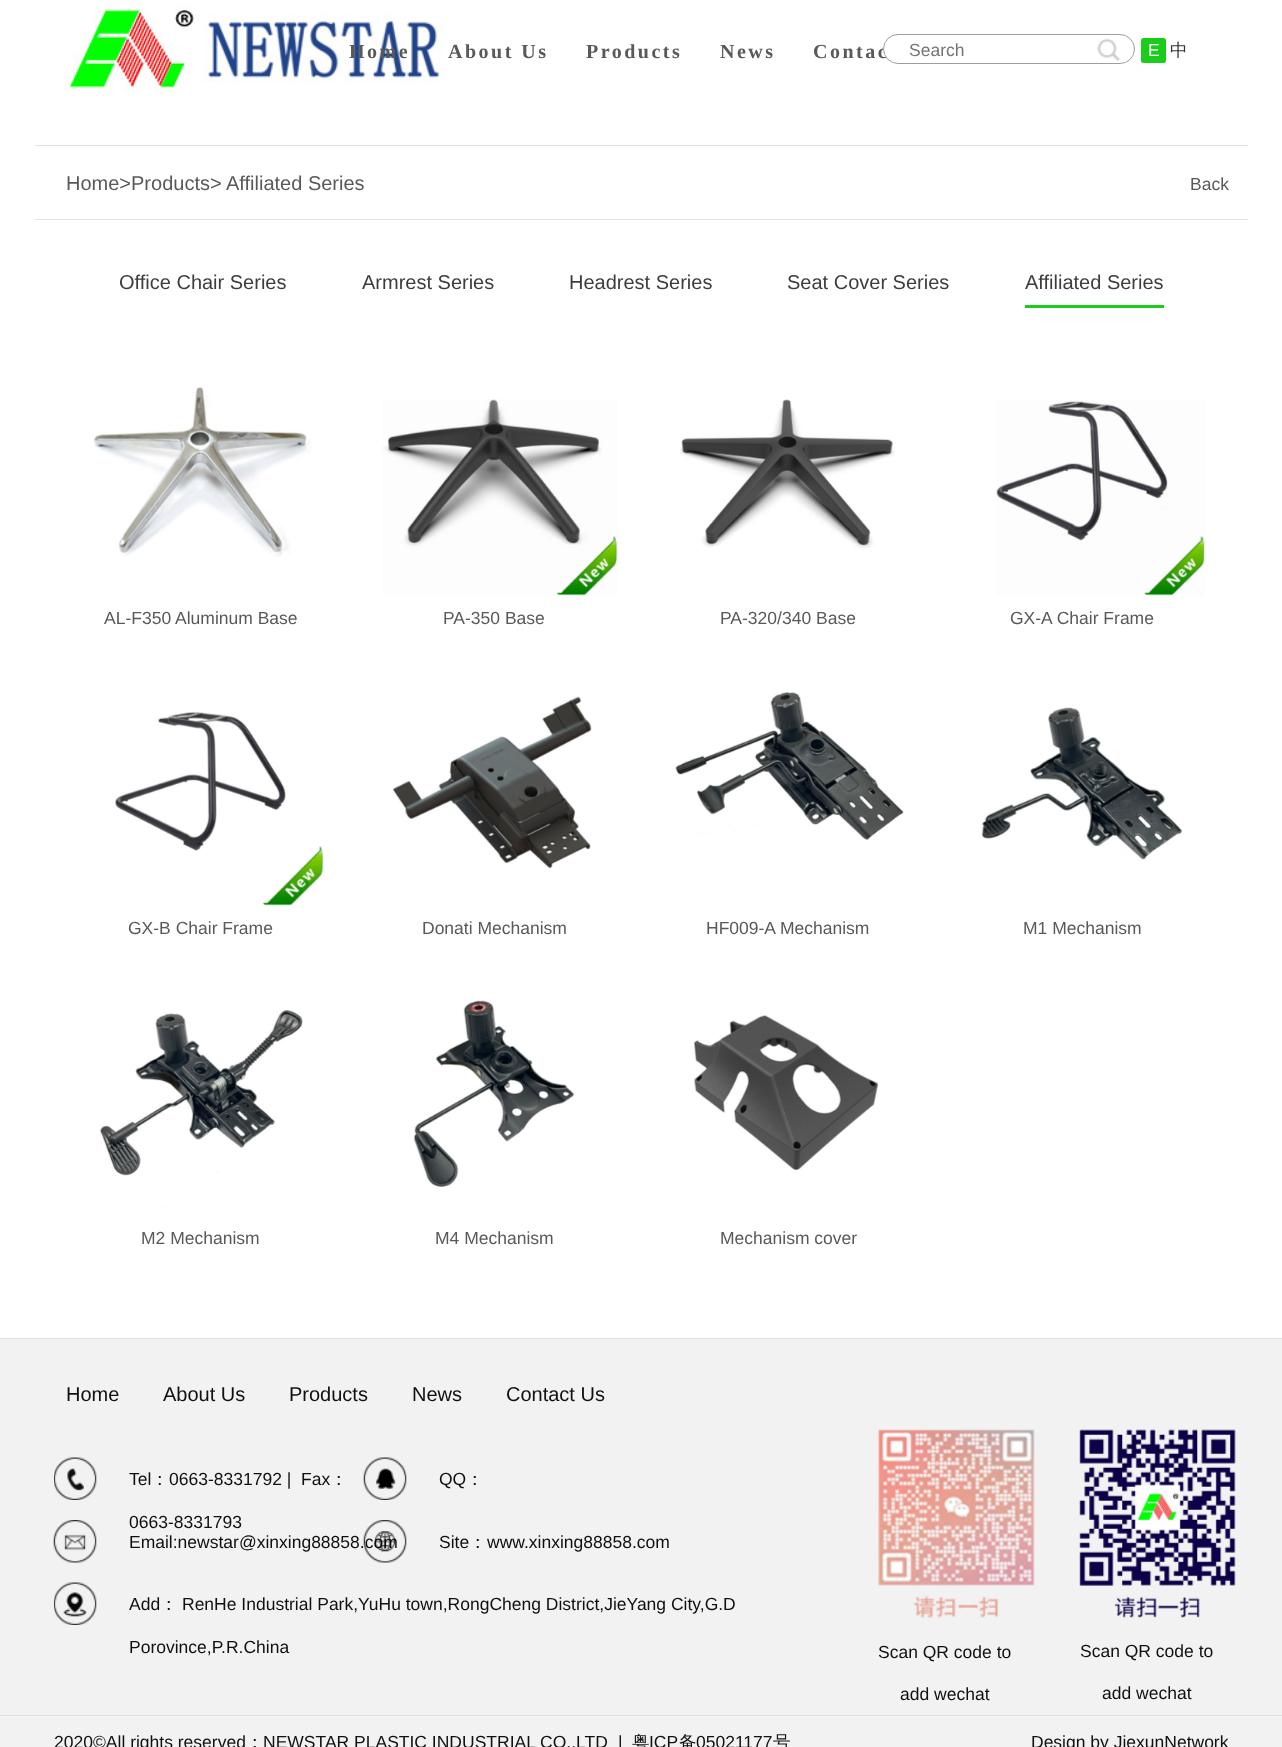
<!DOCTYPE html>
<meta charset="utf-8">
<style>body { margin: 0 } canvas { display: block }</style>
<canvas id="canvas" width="1282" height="1747"></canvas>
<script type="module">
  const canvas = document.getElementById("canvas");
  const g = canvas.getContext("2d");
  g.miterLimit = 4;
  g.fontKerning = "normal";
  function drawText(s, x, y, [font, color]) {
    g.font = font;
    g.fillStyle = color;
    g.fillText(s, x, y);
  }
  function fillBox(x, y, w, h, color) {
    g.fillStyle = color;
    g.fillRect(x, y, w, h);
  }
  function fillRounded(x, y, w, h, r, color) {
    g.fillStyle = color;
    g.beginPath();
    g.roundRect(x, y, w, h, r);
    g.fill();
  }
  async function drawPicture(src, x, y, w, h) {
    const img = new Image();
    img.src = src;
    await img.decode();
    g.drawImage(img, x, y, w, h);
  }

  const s1 = ["bold 20px Liberation Serif", "#595959"];
  const s2 = ["17.5px Liberation Sans", "#757575"];
  const s3 = ["17.5px Liberation Sans", "#FFFFFF"];
  const s4 = ["500 17.5px WenQuanYi Zen Hei", "#333333"];
  const s5 = ["20px Liberation Sans", "#595959"];
  const s6 = ["17.5px Liberation Sans", "#595959"];
  const s7 = ["20px Liberation Sans", "#3D3D3D"];
  const s8 = ["20px Liberation Sans", "#101010"];
  const s9 = ["17.5px Liberation Sans", "#101010"];
  const s10 = ["500 17.5px WenQuanYi Zen Hei", "#101010"];

  fillBox(0, 0, 1282, 1747, "#FFFFFF");
  await drawPicture("pic1.png", 64, 3, 380, 90);
  g.letterSpacing = "2.5px";
  drawText("Home", 349, 58, s1);
  drawText("About Us", 448, 58, s1);
  drawText("Products", 586, 58, s1);
  drawText("News", 720, 58, s1);
  drawText("Contac", 813, 58, s1);
  g.fillStyle = "#FFFFFF";
  g.beginPath();
  g.roundRect(883.5, 34.5, 251, 29, 14.5);
  g.fill();
  g.strokeStyle = "#9D9D9D";
  g.stroke();
  g.letterSpacing = "0px";
  drawText("Search", 909, 56, s2);
  await drawPicture("pic2.png", 1097, 38, 23, 24);
  fillRounded(1141, 38, 25, 25, 2.5, "#1ACD1A");
  drawText("E", 1148, 56, s3);
  drawText("中", 1170, 56, s4);
  fillBox(35, 145, 1213, 1, "#E2E2E2");
  fillBox(35, 219, 1213, 1, "#E2E2E2");
  drawText("Home>Products>", 66, 190, s5);
  drawText("Affiliated Series", 226, 190, s5);
  drawText("Back", 1190, 190, s6);
  drawText("Office Chair Series", 119, 289, s7);
  drawText("Armrest Series", 362, 289, s7);
  drawText("Headrest Series", 569, 289, s7);
  drawText("Seat Cover Series", 787, 289, s7);
  fillBox(1025, 305, 139, 3, "#1ACD19");
  drawText("Affiliated Series", 1025, 289, s7);
  await drawPicture("pic3.png", 93, 387, 219, 170);
  drawText("AL-F350 Aluminum Base", 104, 624, s6);
  await drawPicture("pic4.png", 382, 399, 236, 197);
  drawText("PA-350 Base", 443, 624, s6);
  await drawPicture("pic5.png", 680, 399, 215, 150);
  drawText("PA-320/340 Base", 720, 624, s6);
  await drawPicture("pic6.png", 996, 400, 209, 196);
  drawText("GX-A Chair Frame", 1010, 624, s6);
  await drawPicture("pic7.png", 115, 711, 208, 195);
  drawText("GX-B Chair Frame", 128, 934, s6);
  await drawPicture("pic8.png", 392, 696, 200, 173);
  drawText("Donati Mechanism", 422, 934, s6);
  await drawPicture("pic9.png", 675, 691, 229, 149);
  drawText("HF009-A Mechanism", 706, 934, s6);
  await drawPicture("pic10.png", 981, 707, 202, 153);
  drawText("M1 Mechanism", 1023, 934, s6);
  await drawPicture("pic11.png", 100, 1010, 203, 198);
  drawText("M2 Mechanism", 141, 1244, s6);
  await drawPicture("pic12.png", 413, 1000, 162, 187);
  drawText("M4 Mechanism", 435, 1244, s6);
  await drawPicture("pic13.png", 693, 1015, 185, 156);
  drawText("Mechanism cover", 720, 1244, s6);
  fillBox(0, 1339, 1282, 408, "#F2F2F2");
  fillBox(0, 1338, 1282, 1, "#E2E2E2");
  drawText("Home", 66, 1401, s8);
  drawText("About Us", 163, 1401, s8);
  drawText("Products", 289, 1401, s8);
  drawText("News", 412, 1401, s8);
  drawText("Contact Us", 506, 1401, s8);
  await drawPicture("pic14.png", 54, 1457, 43, 43);
  drawText("Tel", 129, 1485, s9);
  drawText("：", 151, 1485, s10);
  drawText("0663-8331792 |", 169, 1485, s9);
  drawText("Fax", 301, 1485, s9);
  drawText("：", 330, 1485, s10);
  drawText("0663-8331793", 129, 1528, s9);
  await drawPicture("pic15.png", 363, 1457, 44, 43);
  drawText("QQ", 439, 1485, s9);
  drawText("：", 466, 1485, s10);
  await drawPicture("pic16.png", 53, 1520, 44, 43);
  drawText("Email:newstar@xinxing88858.com", 129, 1548, s9);
  await drawPicture("pic17.png", 363, 1520, 44, 43);
  drawText("Site", 439, 1548, s9);
  drawText("：", 469, 1548, s10);
  drawText("www.xinxing88858.com", 487, 1548, s9);
  await drawPicture("pic18.png", 54, 1582, 43, 43);
  drawText("Add", 129, 1610, s9);
  drawText("：", 160, 1610, s10);
  drawText("RenHe Industrial Park,YuHu town,RongCheng District,JieYang City,G.D", 182, 1610, s9);
  drawText("Porovince,P.R.China", 129, 1653, s9);
  await drawPicture("pic19.png", 878, 1429, 157, 189);
  drawText("Scan QR code to", 878, 1658, s9);
  drawText("add wechat", 900, 1700, s9);
  await drawPicture("pic20.png", 1079, 1429, 157, 189);
  drawText("Scan QR code to", 1080, 1657, s9);
  drawText("add wechat", 1102, 1699, s9);
  fillBox(0, 1715, 1282, 1, "#E2E2E2");
  drawText("2020©All rights reserved", 54, 1748, s9);
  drawText("：", 246, 1748, s10);
  drawText("NEWSTAR PLASTIC INDUSTRIAL CO.,LTD", 263, 1748, s9);
  drawText("|", 618, 1748, s9);
  drawText("粤", 632, 1748, s10);
  drawText("ICP", 649, 1748, s9);
  drawText("备", 679, 1748, s10);
  drawText("05021177", 696, 1748, s9);
  drawText("号", 773, 1748, s10);
  drawText("Design by JiexunNetwork", 1031, 1748, s9);
</script>
